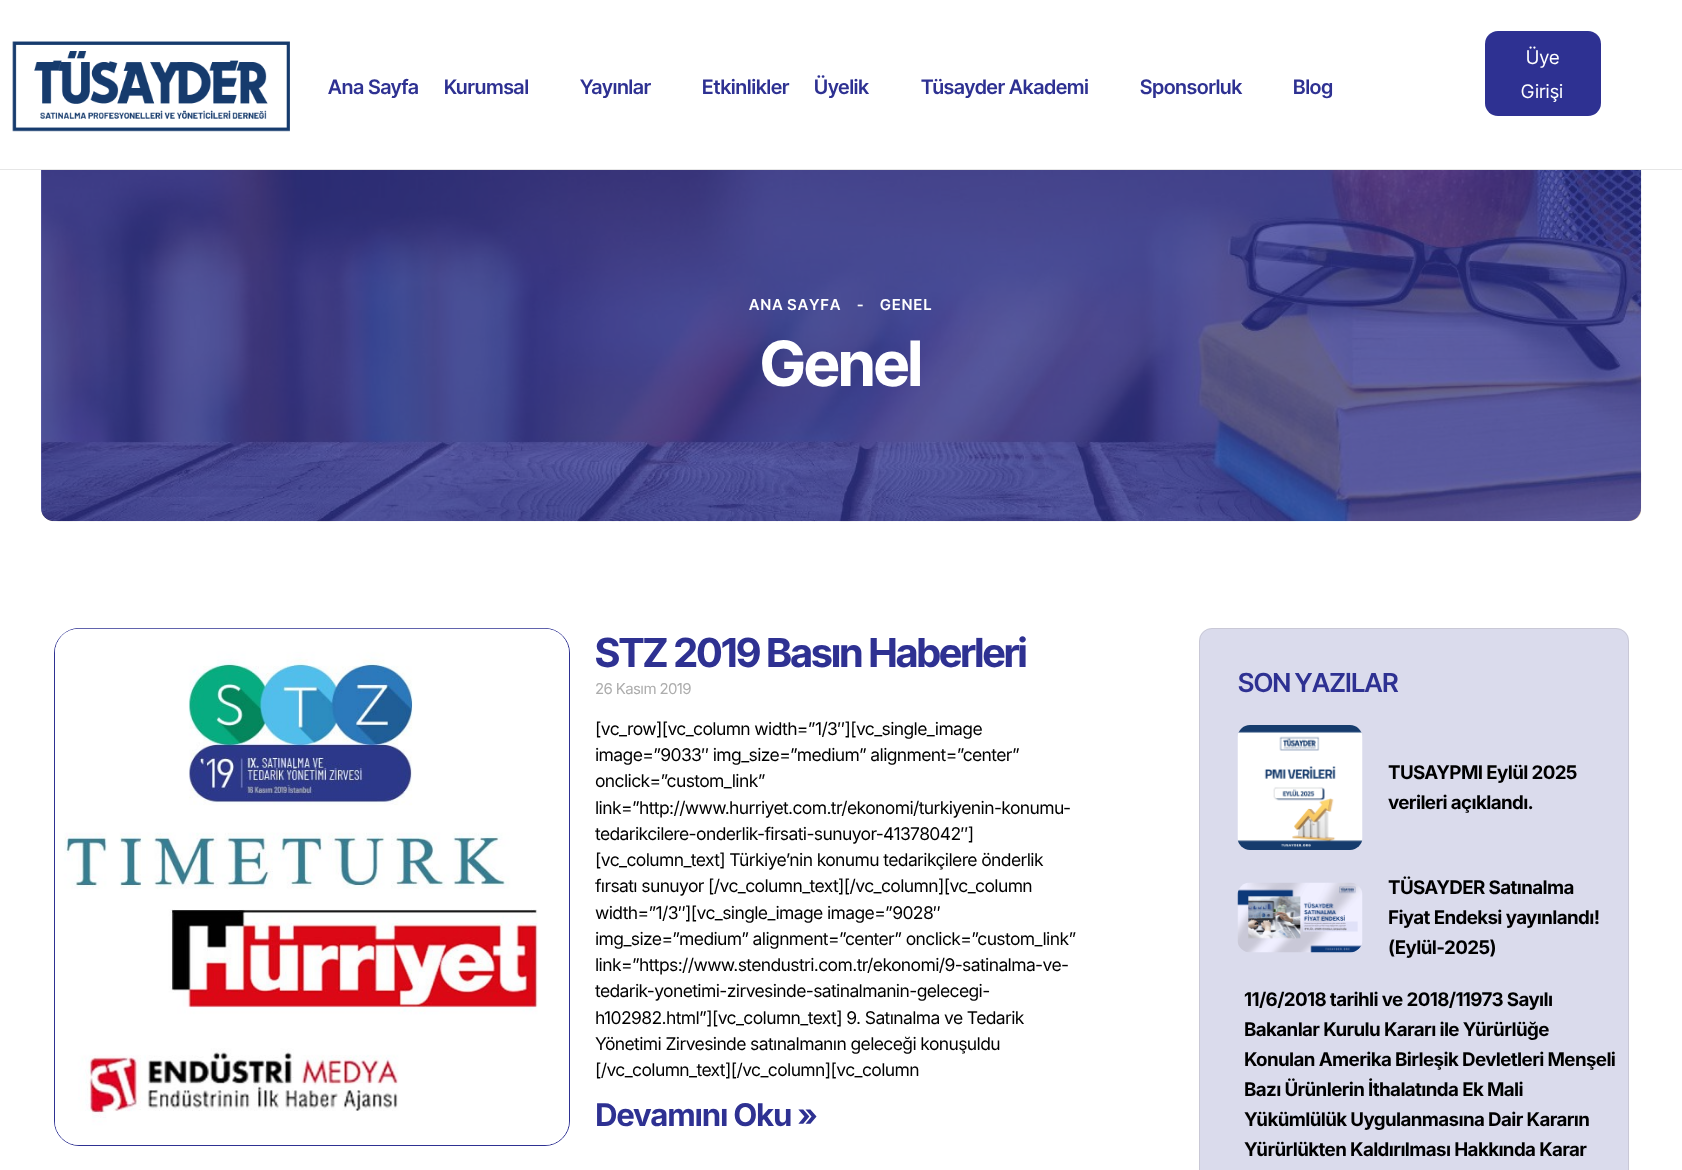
<!DOCTYPE html>
<meta charset="utf-8">
<style>body { margin: 0 } canvas { display: block }</style>
<canvas id="canvas" width="1682" height="1170"></canvas>
<script type="module">
  const canvas = document.getElementById("canvas");
  const g = canvas.getContext("2d");
  g.miterLimit = 4;
  g.fontKerning = "normal";
  function drawText(s, x, y, [font, color]) {
    g.font = font;
    g.fillStyle = color;
    g.fillText(s, x, y);
  }
  function fillBox(x, y, w, h, color) {
    g.fillStyle = color;
    g.fillRect(x, y, w, h);
  }
  function fillRounded(x, y, w, h, r, color) {
    g.fillStyle = color;
    g.beginPath();
    g.roundRect(x, y, w, h, r);
    g.fill();
  }
  async function drawPicture(src, x, y, w, h) {
    const img = new Image();
    img.src = src;
    await img.decode();
    g.drawImage(img, x, y, w, h);
  }

  const s1 = ["600 20px Inter Tight", "#2E3192"];
  const s2 = ["18.75px Inter Tight", "#FFFFFF"];
  const s3 = ["600 15px Inter Tight", "#FFFFFF"];
  const s4 = ["bold 62.5px Inter Tight", "#FFFFFF"];
  const s5 = ["bold 40px Inter Tight", "#2E3192"];
  const s6 = ["15px Inter", "#ADADAD"];
  const s7 = ["17.5px Inter", "#000000"];
  const s8 = ["bold 31.25px Inter", "#2E3192"];
  const s9 = ["600 26.25px Inter Tight", "#2E3192"];
  const s10 = ["bold 18.75px Inter", "#000000"];

  fillBox(0, 0, 1682, 1170, "#FFFFFF");
  fillBox(0, 169, 1682, 1, "#E6E6E6");
  await drawPicture("pic1.png", 12, 41, 278, 91);
  drawText("Ana Sayfa", 328, 94, s1);
  drawText("Kurumsal", 444, 94, s1);
  drawText("Yayınlar", 580, 94, s1);
  drawText("Etkinlikler", 702, 94, s1);
  drawText("Üyelik", 814, 94, s1);
  drawText("Tüsayder Akademi", 921, 94, s1);
  drawText("Sponsorluk", 1140, 94, s1);
  drawText("Blog", 1293, 94, s1);
  fillRounded(1485, 31, 116, 85, 13, "#2E3192");
  g.letterSpacing = "0.5px";
  drawText("Üye", 1526, 64, s2);
  drawText("Girişi", 1521, 98, s2);
  await drawPicture("pic2.png", 41, 170, 1601, 352);
  g.fillStyle = "rgba(46, 49, 146, 0.75)";
  g.beginPath();
  g.roundRect(41, 170, 1600, 351, [0, 0, 13, 13]);
  g.fill();
  g.letterSpacing = "1.25px";
  g.wordSpacing = "-1px";
  drawText("ANA SAYFA", 749, 310, s3);
  g.wordSpacing = "0px";
  drawText("-", 857, 310, s3);
  drawText("GENEL", 880, 310, s3);
  g.letterSpacing = "-1.25px";
  drawText("Genel", 760, 386, s4);
  g.beginPath();
  g.roundRect(54.5, 628.5, 515, 517, 24.5);
  g.strokeStyle = "#2E3192";
  g.stroke();
  await drawPicture("pic3.png", 55, 628, 514, 517);
  drawText("STZ 2019 Basın Haberleri", 595, 667, s5);
  g.letterSpacing = "-0.62px";
  drawText("26 Kasım 2019", 595, 694, s6);
  drawText("[vc_row][vc_column width=”1/3″][vc_single_image", 595, 735, s7);
  drawText("image=”9033″ img_size=”medium” alignment=”center”", 595, 761, s7);
  drawText("onclick=”custom_link”", 595, 787, s7);
  drawText("link=”http://www.hurriyet.com.tr/ekonomi/turkiyenin-konumu-", 595, 814, s7);
  drawText("tedarikcilere-onderlik-firsati-sunuyor-41378042″]", 595, 840, s7);
  drawText("[vc_column_text] Türkiye’nin konumu tedarikçilere önderlik", 595, 866, s7);
  drawText("fırsatı sunuyor [/vc_column_text][/vc_column][vc_column", 595, 892, s7);
  drawText("width=”1/3″][vc_single_image image=”9028″", 595, 919, s7);
  drawText("img_size=”medium” alignment=”center” onclick=”custom_link”", 595, 945, s7);
  drawText("link=”https://www.stendustri.com.tr/ekonomi/9-satinalma-ve-", 595, 971, s7);
  drawText("tedarik-yonetimi-zirvesinde-satinalmanin-gelecegi-", 595, 997, s7);
  drawText("h102982.html”][vc_column_text] 9. Satınalma ve Tedarik", 595, 1024, s7);
  drawText("Yönetimi Zirvesinde satınalmanın geleceği konuşuldu", 595, 1050, s7);
  drawText("[/vc_column_text][/vc_column][vc_column", 595, 1076, s7);
  g.letterSpacing = "-1.25px";
  drawText("Devamını Oku »", 595, 1126, s8);
  fillRounded(1199, 628, 430, 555, 13, "#DADBEC");
  g.beginPath();
  g.roundRect(1199.5, 628.5, 429, 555, 12.5);
  g.strokeStyle = "rgba(135, 134, 134, 0.21)";
  g.stroke();
  g.letterSpacing = "-0.4px";
  g.wordSpacing = "-1px";
  drawText("SON YAZILAR", 1238, 692, s9);
  await drawPicture("pic4.png", 1237, 725, 126, 125);
  g.letterSpacing = "-0.62px";
  g.wordSpacing = "0px";
  drawText("TUSAYPMI Eylül 2025", 1388, 779, s10);
  drawText("verileri açıklandı.", 1388, 809, s10);
  await drawPicture("pic5.png", 1237, 882, 126, 71);
  drawText("TÜSAYDER Satınalma", 1388, 894, s10);
  drawText("Fiyat Endeksi yayınlandı!", 1388, 924, s10);
  drawText("(Eylül-2025)", 1388, 954, s10);
  drawText("11/6/2018 tarihli ve 2018/11973 Sayılı", 1244, 1006, s10);
  drawText("Bakanlar Kurulu Kararı ile Yürürlüğe", 1244, 1036, s10);
  drawText("Konulan Amerika Birleşik Devletleri Menşeli", 1244, 1066, s10);
  drawText("Bazı Ürünlerin İthalatında Ek Mali", 1244, 1096, s10);
  drawText("Yükümlülük Uygulanmasına Dair Kararın", 1244, 1126, s10);
  drawText("Yürürlükten Kaldırılması Hakkında Karar", 1244, 1156, s10);
</script>
